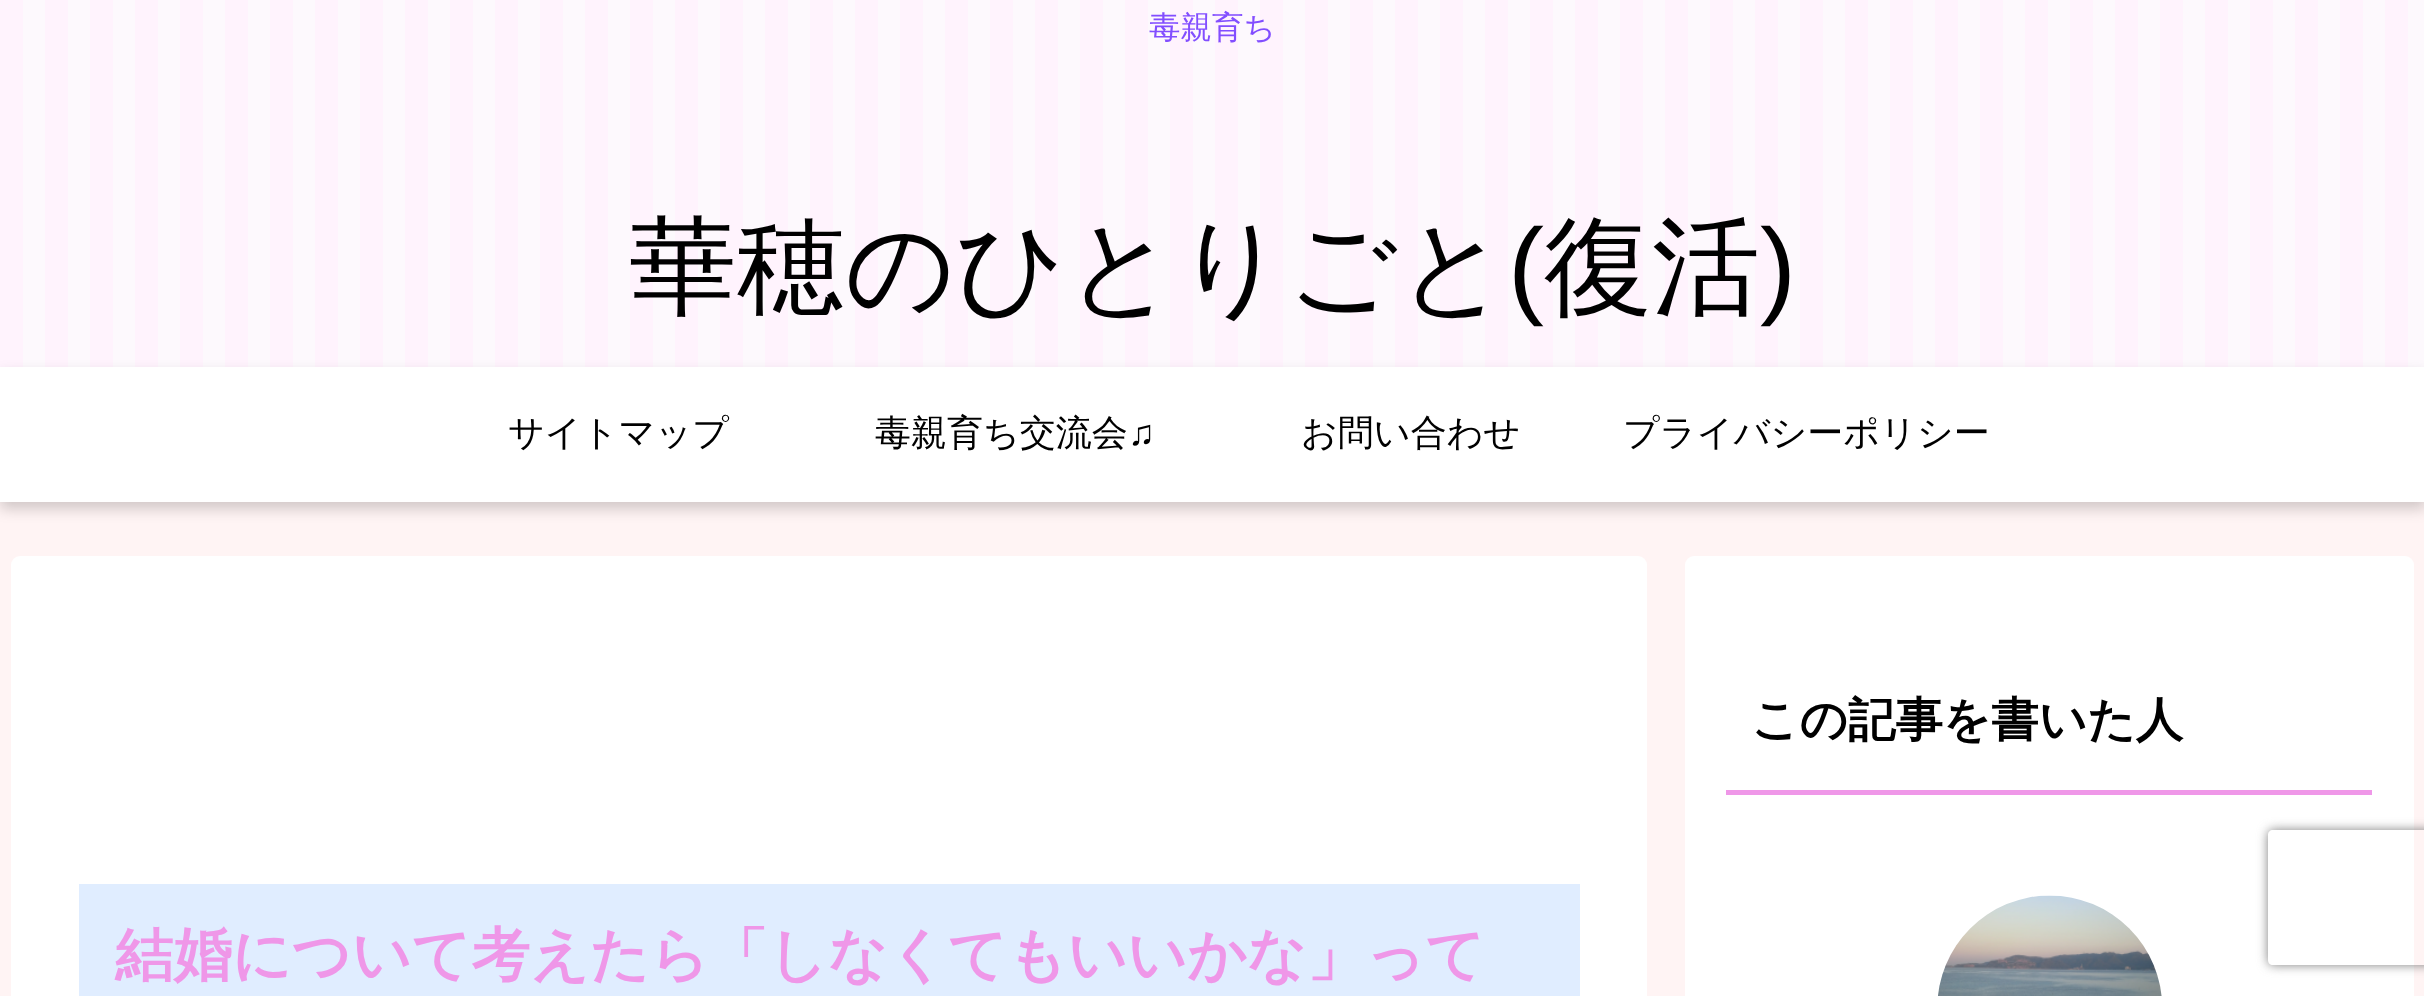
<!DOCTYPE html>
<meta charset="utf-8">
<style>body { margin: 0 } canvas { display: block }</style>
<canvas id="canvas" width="2424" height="996"></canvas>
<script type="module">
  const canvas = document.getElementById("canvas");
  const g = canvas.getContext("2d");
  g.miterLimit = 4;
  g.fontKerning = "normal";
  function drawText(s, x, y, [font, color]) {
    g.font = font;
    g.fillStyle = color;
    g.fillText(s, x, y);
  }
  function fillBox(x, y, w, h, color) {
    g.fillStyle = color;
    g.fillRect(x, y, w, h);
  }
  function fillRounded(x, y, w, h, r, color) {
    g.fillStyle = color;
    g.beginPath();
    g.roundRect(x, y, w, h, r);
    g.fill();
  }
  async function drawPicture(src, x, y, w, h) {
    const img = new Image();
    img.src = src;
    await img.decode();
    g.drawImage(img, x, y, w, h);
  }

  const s1 = ["500 31.5px WenQuanYi Zen Hei", "#824EFF"];
  const s2 = ["500 108px WenQuanYi Zen Hei", "#000000"];
  const s3 = ["108px Liberation Sans", "#000000"];
  const s4 = ["500 36px WenQuanYi Zen Hei", "#000000"];
  const s5 = ["36px Liberation Serif", "#000000"];
  const s6 = ["bold 47.4px WenQuanYi Zen Hei", "#000000"];
  const s7 = ["bold 58.5px WenQuanYi Zen Hei", "#EF97E8"];

  fillBox(0, 0, 2424, 996, "#FFF4F4");
  await drawPicture("pic1.png", 0, 0, 2424, 367);
  drawText("毒親育ち", 1149, 38, s1);
  drawText("華穂のひとりごと", 629, 304, s2);
  drawText("(", 1508, 304, s3);
  drawText("復活", 1544, 304, s2);
  drawText(")", 1760, 304, s3);
  g.fillStyle = "rgba(0, 0, 0, 0.18)";
  g.filter = "blur(7px)";
  g.beginPath();
  g.rect(0, 374, 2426, 135);
  g.fill();
  g.filter = "none";
  fillBox(0, 367, 2424, 135, "#FFFFFF");
  drawText("サイトマップ", 508, 445, s4);
  drawText("毒親育ち交流会", 875, 445, s4);
  drawText("♫", 1128, 445, s5);
  drawText("お問い合わせ", 1301, 445, s4);
  drawText("プライバシーポリシー", 1623, 445, s4);
  fillRounded(1685, 556, 729, 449, 9, "#FFFFFF");
  fillBox(1726, 790, 646, 5, "#EF97E8");
  drawText("この記事を書いた人", 1751, 736, s6);
  await drawPicture("pic2.png", 1938, 895, 224, 101);
  fillRounded(11, 556, 1636, 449, 9, "#FFFFFF");
  fillBox(79, 884, 1501, 112, "#E0EDFF");
  drawText("結婚について考えたら「しなくてもいいかな」って", 115, 975, s7);
  g.save();
  g.beginPath();
  g.moveTo(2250, 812);
  g.lineTo(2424, 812);
  g.lineTo(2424, 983);
  g.lineTo(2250, 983);
  g.closePath();
  g.moveTo(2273, 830);
  g.lineTo(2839, 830);
  g.bezierCurveTo(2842, 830, 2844, 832, 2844, 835);
  g.lineTo(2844, 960);
  g.bezierCurveTo(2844, 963, 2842, 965, 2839, 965);
  g.lineTo(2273, 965);
  g.bezierCurveTo(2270, 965, 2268, 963, 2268, 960);
  g.lineTo(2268, 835);
  g.bezierCurveTo(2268, 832, 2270, 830, 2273, 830);
  g.closePath();
  g.clip("evenodd");
  g.fillStyle = "#808080";
  g.filter = "blur(5.5px)";
  g.beginPath();
  g.roundRect(2268, 830, 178, 135, 5);
  g.fill();
  g.filter = "none";
  g.restore();
</script>
